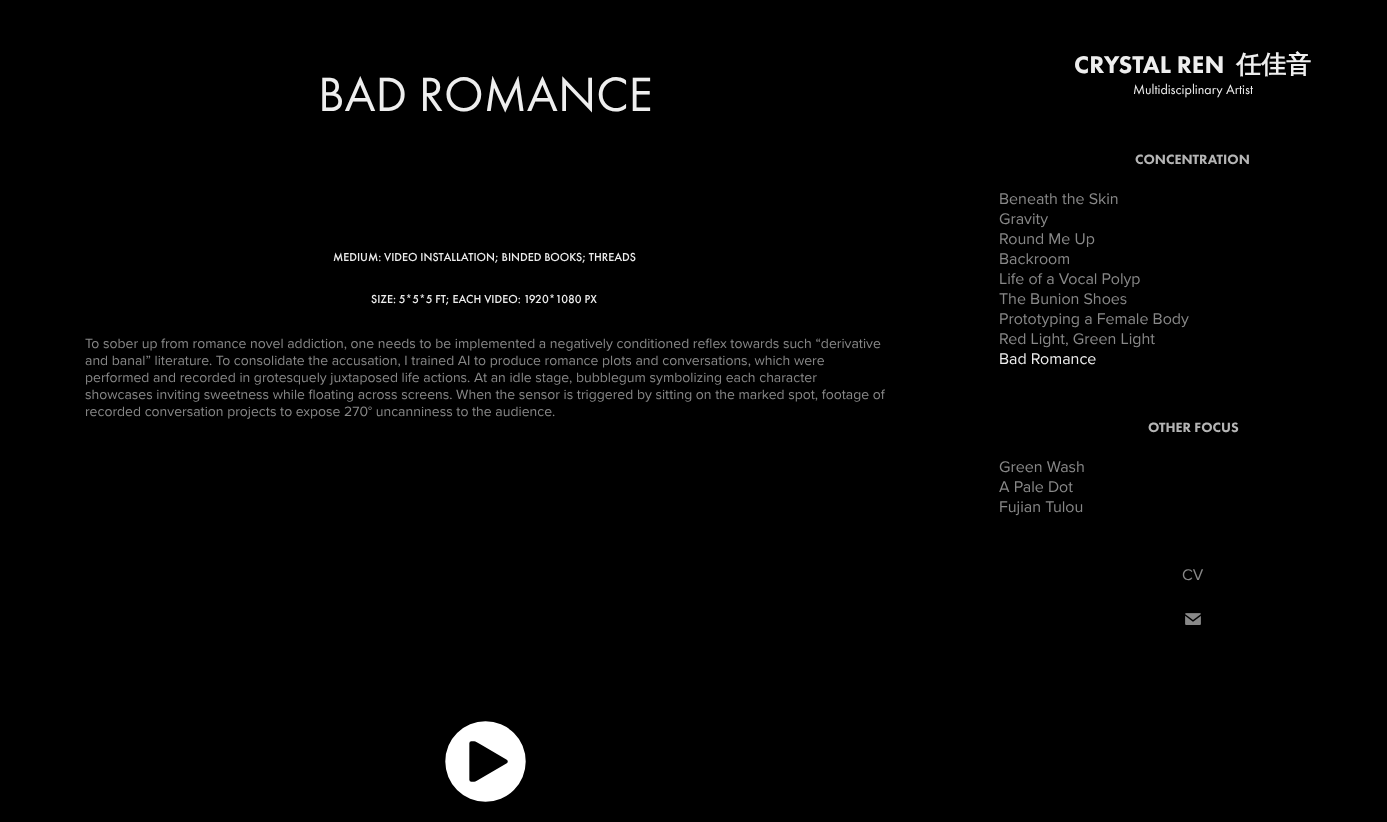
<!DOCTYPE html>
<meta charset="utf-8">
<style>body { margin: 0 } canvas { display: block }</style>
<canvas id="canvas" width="1387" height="822"></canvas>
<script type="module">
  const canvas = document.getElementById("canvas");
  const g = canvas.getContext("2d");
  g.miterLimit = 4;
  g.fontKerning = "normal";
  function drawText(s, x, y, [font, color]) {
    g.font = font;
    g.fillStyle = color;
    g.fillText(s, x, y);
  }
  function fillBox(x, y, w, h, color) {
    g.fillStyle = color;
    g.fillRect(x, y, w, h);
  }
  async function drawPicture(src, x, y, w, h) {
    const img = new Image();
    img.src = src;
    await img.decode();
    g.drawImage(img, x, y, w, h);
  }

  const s1 = ["50px Futura PT", "#EEEEEE"];
  const s2 = ["500 12px Futura PT", "#EEEEEE"];
  const s3 = ["14px Proxima Nova", "#888888"];
  const s4 = ["900 25px Futura PT", "#EEEEEE"];
  const s5 = ["bold 25px WenQuanYi Zen Hei", "#EEEEEE"];
  const s6 = ["14px Futura PT", "#EEEEEE"];
  const s7 = ["900 14px Futura PT", "#B5B5B5"];
  const s8 = ["16px Proxima Nova", "#888888"];
  const s9 = ["16px Proxima Nova", "#EEEEEE"];

  fillBox(0, 0, 1387, 822, "#000000");
  drawText("BAD ROMANCE", 318, 111, s1);
  drawText("MEDIUM: VIDEO INSTALLATION; BINDED BOOKS; THREADS", 333, 261, s2);
  drawText("SIZE: 5*5*5 FT; EACH VIDEO: 1920*1080 PX", 371, 303, s2);
  drawText("To sober up from romance novel addiction, one needs to be implemented a negatively conditioned reflex towards such “derivative", 85, 348, s3);
  drawText("and banal” literature. To consolidate the accusation, I trained AI to produce romance plots and conversations, which were", 85, 365, s3);
  drawText("performed and recorded in grotesquely juxtaposed life actions. At an idle stage, bubblegum symbolizing each character", 85, 382, s3);
  drawText("showcases inviting sweetness while floating across screens. When the sensor is triggered by sitting on the marked spot, footage of", 85, 399, s3);
  drawText("recorded conversation projects to expose 270° uncanniness to the audience.", 85, 416, s3);
  await drawPicture("pic1.png", 445, 721, 81, 81);
  drawText("CRYSTAL REN", 1074, 73, s4);
  drawText("任佳音", 1236, 73, s5);
  drawText("Multidisciplinary Artist", 1133, 94, s6);
  drawText("CONCENTRATION", 1135, 164, s7);
  drawText("Beneath the Skin", 999, 204, s8);
  drawText("Gravity", 999, 224, s8);
  drawText("Round Me Up", 999, 244, s8);
  drawText("Backroom", 999, 264, s8);
  drawText("Life of a Vocal Polyp", 999, 284, s8);
  drawText("The Bunion Shoes", 999, 304, s8);
  drawText("Prototyping a Female Body", 999, 324, s8);
  drawText("Red Light, Green Light", 999, 344, s8);
  drawText("Bad Romance", 999, 364, s9);
  drawText("OTHER FOCUS", 1148, 432, s7);
  drawText("Green Wash", 999, 472, s8);
  drawText("A Pale Dot", 999, 492, s8);
  drawText("Fujian Tulou", 999, 512, s8);
  drawText("CV", 1182, 580, s8);
  await drawPicture("pic2.png", 1185, 613, 16, 12);
</script>
